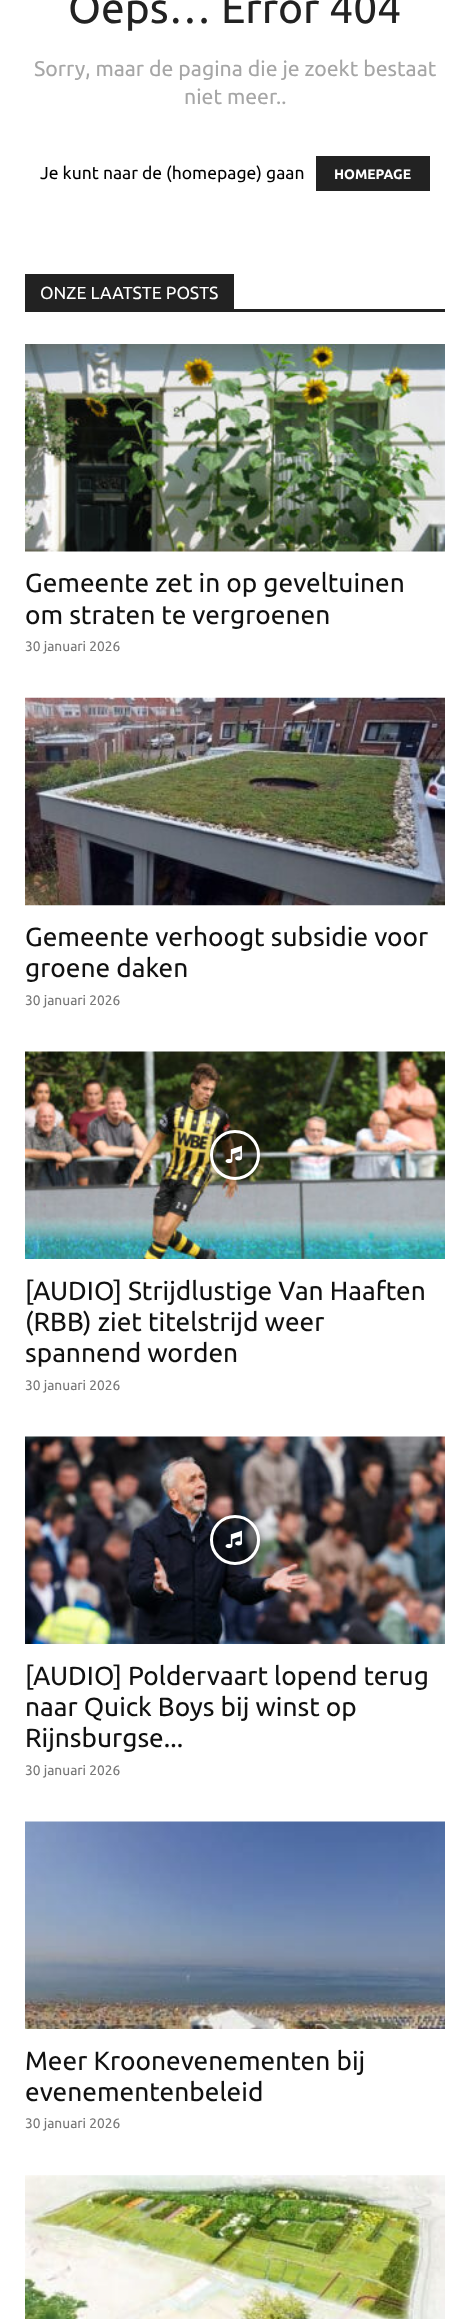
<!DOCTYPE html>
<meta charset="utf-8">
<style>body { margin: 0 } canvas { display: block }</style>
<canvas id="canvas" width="470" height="2319"></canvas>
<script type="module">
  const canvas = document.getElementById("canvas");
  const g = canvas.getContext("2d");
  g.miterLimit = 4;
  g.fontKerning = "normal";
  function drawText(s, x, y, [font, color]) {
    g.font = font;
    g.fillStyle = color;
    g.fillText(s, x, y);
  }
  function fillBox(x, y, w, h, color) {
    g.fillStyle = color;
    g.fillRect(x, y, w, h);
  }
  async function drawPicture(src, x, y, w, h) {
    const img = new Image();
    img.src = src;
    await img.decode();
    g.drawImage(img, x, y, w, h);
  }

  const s1 = ["42.5px Ubuntu", "#222222"];
  const s2 = ["21.25px Ubuntu", "#A6A6A6"];
  const s3 = ["17.5px Ubuntu", "#000000"];
  const s4 = ["bold 13.75px Ubuntu", "#FFFFFF"];
  const s5 = ["17.5px Ubuntu", "#FFFFFF"];
  const s6 = ["26.25px Ubuntu", "#111111"];
  const s7 = ["13.75px Ubuntu", "#767676"];

  fillBox(0, 0, 470, 2319, "#FFFFFF");
  drawText("Oeps… Error 404", 68, 23, s1);
  drawText("Sorry, maar de pagina die je zoekt bestaat", 34, 76, s2);
  drawText("niet meer..", 184, 104, s2);
  drawText("Je kunt naar de (homepage) gaan", 40, 179, s3);
  fillBox(316, 156, 114, 35, "#222222");
  drawText("HOMEPAGE", 334, 179, s4);
  fillBox(25, 309, 420, 3, "#222222");
  fillBox(25, 274, 209, 35, "#222222");
  drawText("ONZE LAATSTE POSTS", 40, 299, s5);
  await drawPicture("pic1.png", 25, 344, 420, 208);
  drawText("Gemeente zet in op geveltuinen", 25, 592, s6);
  drawText("om straten te vergroenen", 25, 624, s6);
  drawText("30 januari 2026", 25, 651, s7);
  await drawPicture("pic2.png", 25, 697, 420, 209);
  drawText("Gemeente verhoogt subsidie voor", 25, 946, s6);
  drawText("groene daken", 25, 977, s6);
  drawText("30 januari 2026", 25, 1005, s7);
  await drawPicture("pic3.png", 25, 1051, 420, 208);
  g.save();
  g.beginPath();
  g.moveTo(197, 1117);
  g.lineTo(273, 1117);
  g.lineTo(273, 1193);
  g.lineTo(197, 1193);
  g.closePath();
  g.moveTo(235, 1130);
  g.bezierCurveTo(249, 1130, 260, 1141, 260, 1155);
  g.bezierCurveTo(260, 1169, 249, 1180, 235, 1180);
  g.bezierCurveTo(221, 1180, 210, 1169, 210, 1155);
  g.bezierCurveTo(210, 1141, 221, 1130, 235, 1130);
  g.closePath();
  g.clip("evenodd");
  g.fillStyle = "rgba(0, 0, 0, 0.4)";
  g.filter = "blur(4px)";
  g.beginPath();
  g.roundRect(210, 1130, 50, 50, 25);
  g.fill();
  g.filter = "none";
  g.restore();
  g.fillStyle = "rgba(0, 0, 0, 0.48)";
  g.beginPath();
  g.arc(235, 1155, 23.5, 0, Math.PI * 2);
  g.fill();
  g.strokeStyle = "#FFFFFF";
  g.lineWidth = 3;
  g.stroke();
  await drawPicture("pic4.png", 225, 1145, 17, 19);
  drawText("[AUDIO] Strijdlustige Van Haaften", 25, 1300, s6);
  drawText("(RBB) ziet titelstrijd weer", 25, 1331, s6);
  drawText("spannend worden", 25, 1362, s6);
  drawText("30 januari 2026", 25, 1390, s7);
  await drawPicture("pic5.png", 25, 1436, 420, 208);
  g.save();
  g.beginPath();
  g.moveTo(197, 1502);
  g.lineTo(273, 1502);
  g.lineTo(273, 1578);
  g.lineTo(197, 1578);
  g.closePath();
  g.moveTo(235, 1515);
  g.bezierCurveTo(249, 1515, 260, 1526, 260, 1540);
  g.bezierCurveTo(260, 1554, 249, 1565, 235, 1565);
  g.bezierCurveTo(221, 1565, 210, 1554, 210, 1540);
  g.bezierCurveTo(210, 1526, 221, 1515, 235, 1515);
  g.closePath();
  g.clip("evenodd");
  g.fillStyle = "rgba(0, 0, 0, 0.4)";
  g.filter = "blur(4px)";
  g.beginPath();
  g.roundRect(210, 1515, 50, 50, 25);
  g.fill();
  g.filter = "none";
  g.restore();
  g.fillStyle = "rgba(0, 0, 0, 0.48)";
  g.beginPath();
  g.arc(235, 1540, 23.5, 0, Math.PI * 2);
  g.fill();
  g.stroke();
  await drawPicture("pic6.png", 225, 1530, 17, 19);
  drawText("[AUDIO] Poldervaart lopend terug", 25, 1685, s6);
  drawText("naar Quick Boys bij winst op", 25, 1716, s6);
  drawText("Rijnsburgse...", 25, 1747, s6);
  drawText("30 januari 2026", 25, 1775, s7);
  await drawPicture("pic7.png", 25, 1821, 420, 208);
  drawText("Meer Kroonevenementen bij", 25, 2070, s6);
  drawText("evenementenbeleid", 25, 2101, s6);
  drawText("30 januari 2026", 25, 2128, s7);
  await drawPicture("pic8.png", 25, 2175, 420, 144);
</script>
